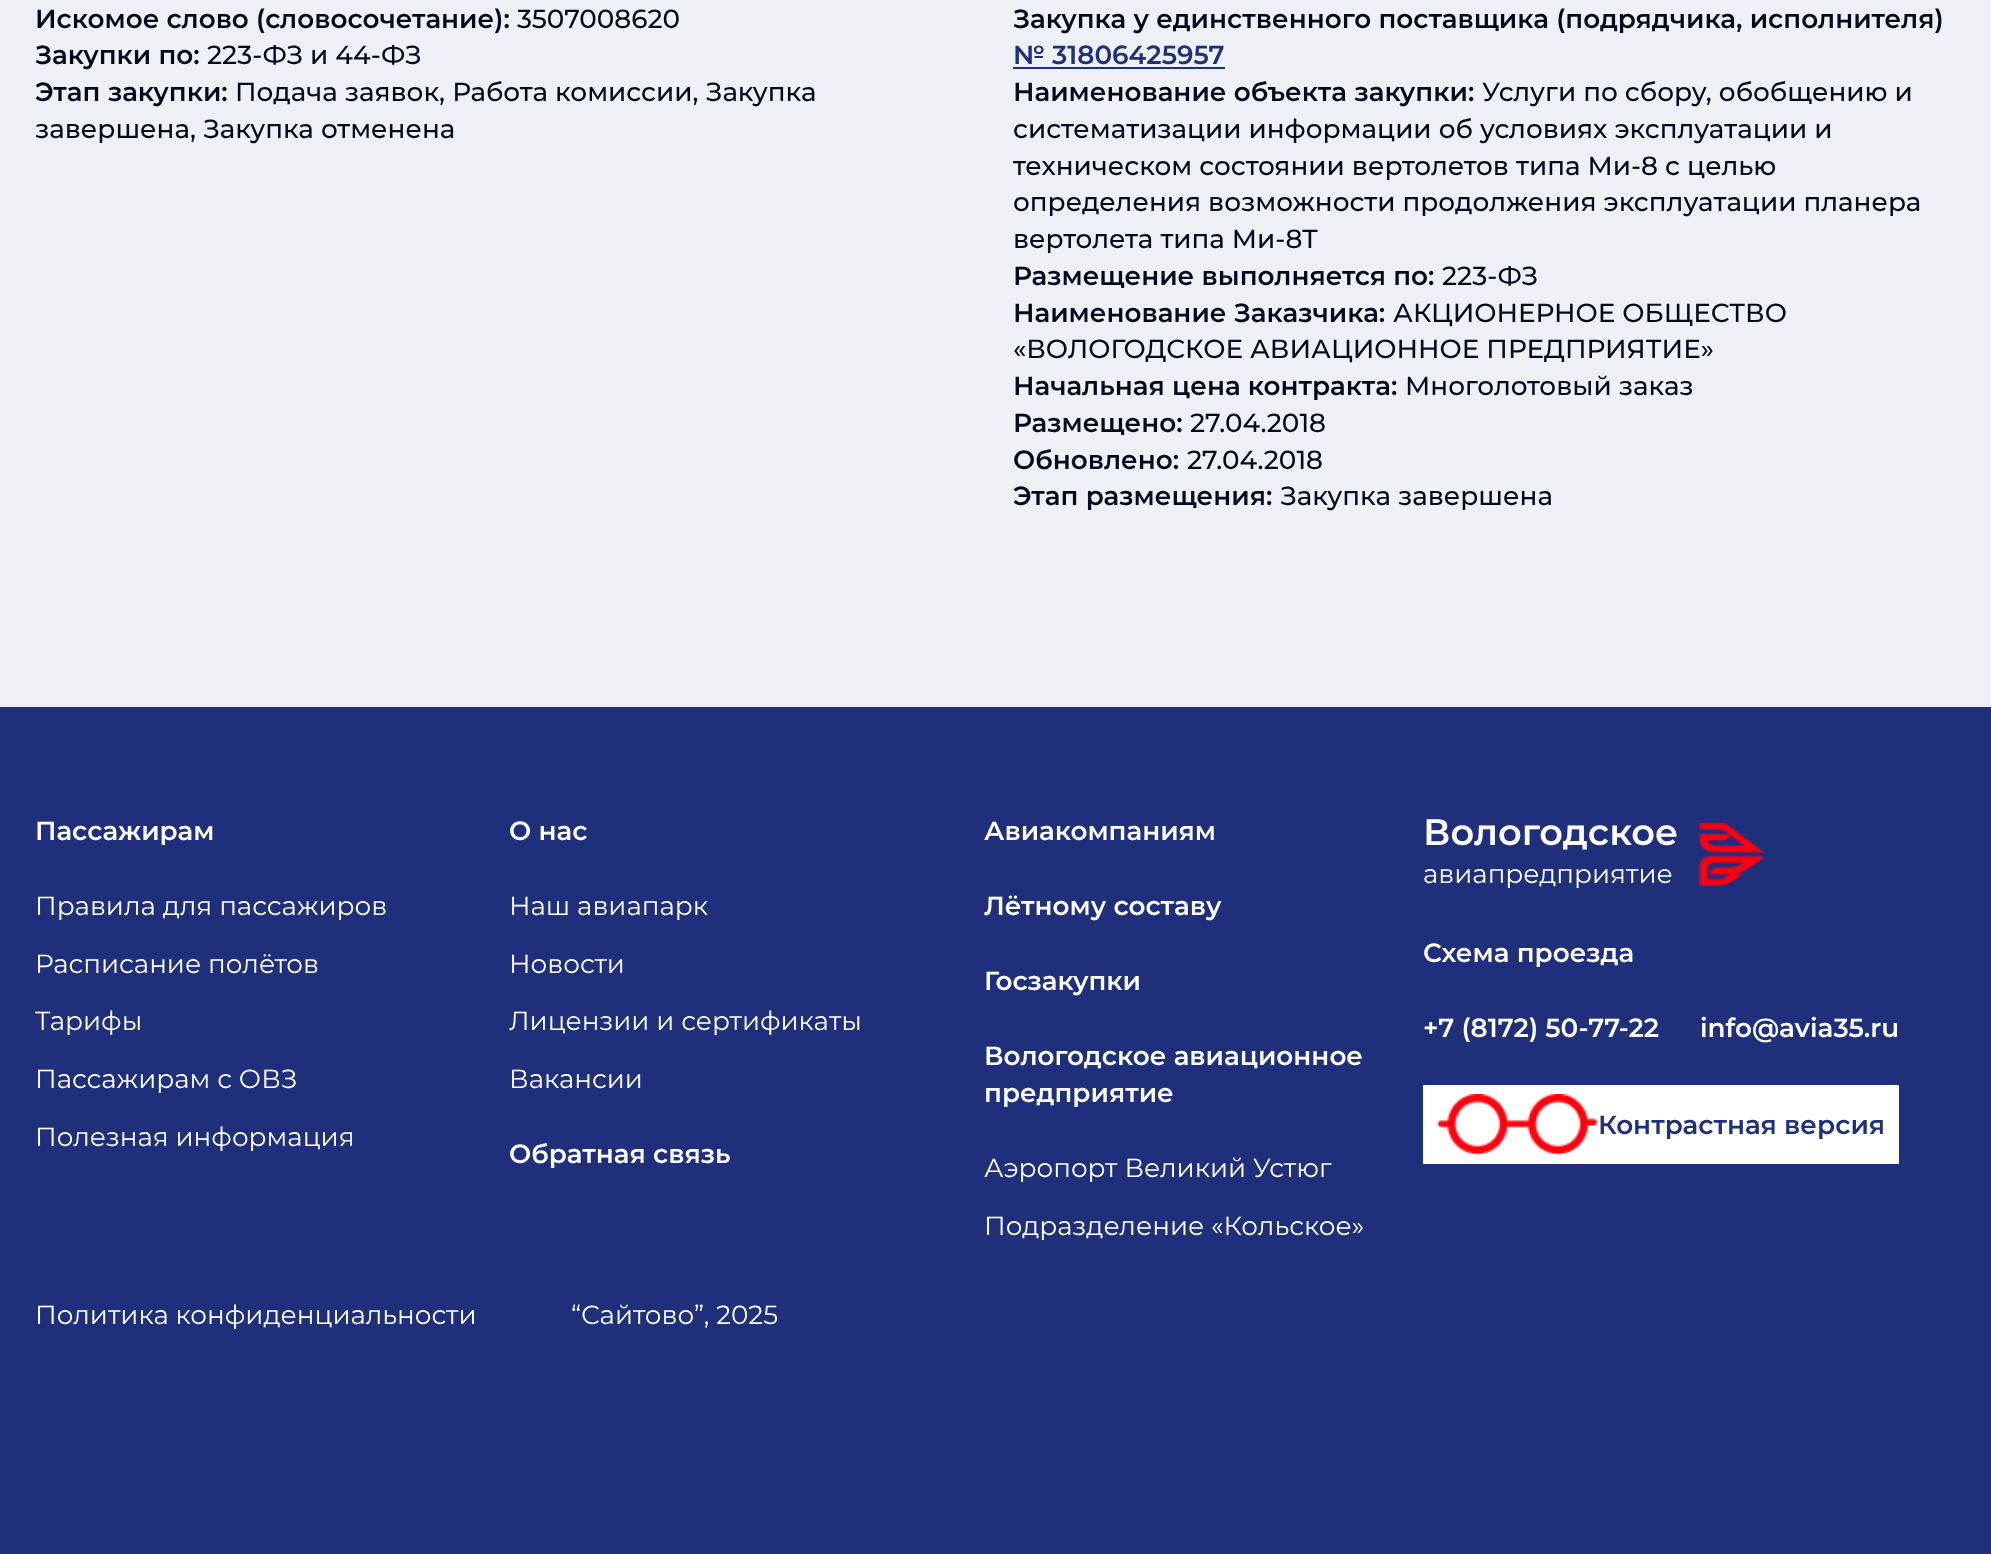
<!DOCTYPE html>
<meta charset="utf-8">
<style>body { margin: 0 } canvas { display: block }</style>
<canvas id="canvas" width="1991" height="1554"></canvas>
<script type="module">
  const canvas = document.getElementById("canvas");
  const g = canvas.getContext("2d");
  g.miterLimit = 4;
  g.fontKerning = "normal";
  function drawText(s, x, y, [font, color]) {
    g.font = font;
    g.fillStyle = color;
    g.fillText(s, x, y);
  }
  function fillBox(x, y, w, h, color) {
    g.fillStyle = color;
    g.fillRect(x, y, w, h);
  }
  async function drawPicture(src, x, y, w, h) {
    const img = new Image();
    img.src = src;
    await img.decode();
    g.drawImage(img, x, y, w, h);
  }

  const s1 = ["100 26.25px Montserrat", "#040A1B"];
  const s2 = ["100 26.25px 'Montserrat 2'", "#040A1B"];
  const s3 = ["100 26.25px Montserrat", "#1F2F7C"];
  const s4 = ["100 26.25px Montserrat", "#FFFFFF"];
  const s5 = ["100 26.25px 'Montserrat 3'", "#FFFFFF"];
  const s6 = ["100 36.75px Montserrat", "#FFFFFF"];

  fillBox(0, 0, 1991, 1554, "#EDF0F4");
  drawText("Искомое слово (словосочетание):", 35, 28, s1);
  drawText("3507008620", 517, 28, s2);
  drawText("Закупки по:", 35, 64, s1);
  drawText("223-ФЗ и 44-ФЗ", 207, 64, s2);
  drawText("Этап закупки:", 35, 101, s1);
  drawText("Подача заявок, Работа комиссии, Закупка", 235, 101, s2);
  drawText("завершена, Закупка отменена", 35, 138, s2);
  drawText("Закупка у единственного поставщика (подрядчика, исполнителя)", 1013, 28, s1);
  drawText("№ 31806425957", 1013, 64, s3);
  fillBox(1013, 67, 212, 2, "#1F2F7C");
  drawText("Наименование объекта закупки:", 1013, 101, s1);
  drawText("Услуги по сбору, обобщению и", 1482, 101, s2);
  drawText("систематизации информации об условиях эксплуатации и", 1013, 138, s2);
  drawText("техническом состоянии вертолетов типа Ми-8 с целью", 1013, 175, s2);
  drawText("определения возможности продолжения эксплуатации планера", 1013, 211, s2);
  drawText("вертолета типа Ми-8Т", 1013, 248, s2);
  drawText("Размещение выполняется по:", 1013, 285, s1);
  drawText("223-ФЗ", 1442, 285, s2);
  drawText("Наименование Заказчика:", 1013, 322, s1);
  drawText("АКЦИОНЕРНОЕ ОБЩЕСТВО", 1393, 322, s2);
  drawText("«ВОЛОГОДСКОЕ АВИАЦИОННОЕ ПРЕДПРИЯТИЕ»", 1013, 358, s2);
  drawText("Начальная цена контракта:", 1013, 395, s1);
  drawText("Многолотовый заказ", 1405, 395, s2);
  drawText("Размещено:", 1013, 432, s1);
  drawText("27.04.2018", 1190, 432, s2);
  drawText("Обновлено:", 1013, 469, s1);
  drawText("27.04.2018", 1187, 469, s2);
  drawText("Этап размещения:", 1013, 505, s1);
  drawText("Закупка завершена", 1280, 505, s2);
  fillBox(0, 707, 1991, 847, "#1F2F7C");
  drawText("Пассажирам", 35, 840, s4);
  drawText("Правила для пассажиров", 35, 915, s5);
  drawText("Расписание полётов", 35, 973, s5);
  drawText("Тарифы", 35, 1030, s5);
  drawText("Пассажирам с ОВЗ", 35, 1088, s5);
  drawText("Полезная информация", 35, 1146, s5);
  drawText("О нас", 509, 840, s4);
  drawText("Наш авиапарк", 509, 915, s5);
  drawText("Новости", 509, 973, s5);
  drawText("Лицензии и сертификаты", 509, 1030, s5);
  drawText("Вакансии", 509, 1088, s5);
  drawText("Авиакомпаниям", 984, 840, s4);
  drawText("Лётному составу", 984, 915, s4);
  drawText("Госзакупки", 984, 990, s4);
  drawText("Обратная связь", 509, 1163, s4);
  drawText("Вологодское авиационное", 984, 1065, s4);
  drawText("предприятие", 984, 1102, s4);
  drawText("Аэропорт Великий Устюг", 984, 1177, s5);
  drawText("Подразделение «Кольское»", 984, 1235, s5);
  drawText("Вологодское", 1423, 845, s6);
  drawText("авиапредприятие", 1423, 883, s5);
  await drawPicture("pic1.png", 1699, 822, 65, 64);
  drawText("Схема проезда", 1423, 962, s4);
  drawText("+7 (8172) 50-77-22", 1423, 1037, s4);
  drawText("info@avia35.ru", 1700, 1037, s4);
  fillBox(1423, 1085, 476, 79, "#FFFFFF");
  await drawPicture("pic2.png", 1436, 1094, 162, 62);
  drawText("Контрастная версия", 1598, 1134, s3);
  drawText("Политика конфиденциальности", 35, 1324, s5);
  drawText("“Сайтово”, 2025", 571, 1324, s5);
</script>
